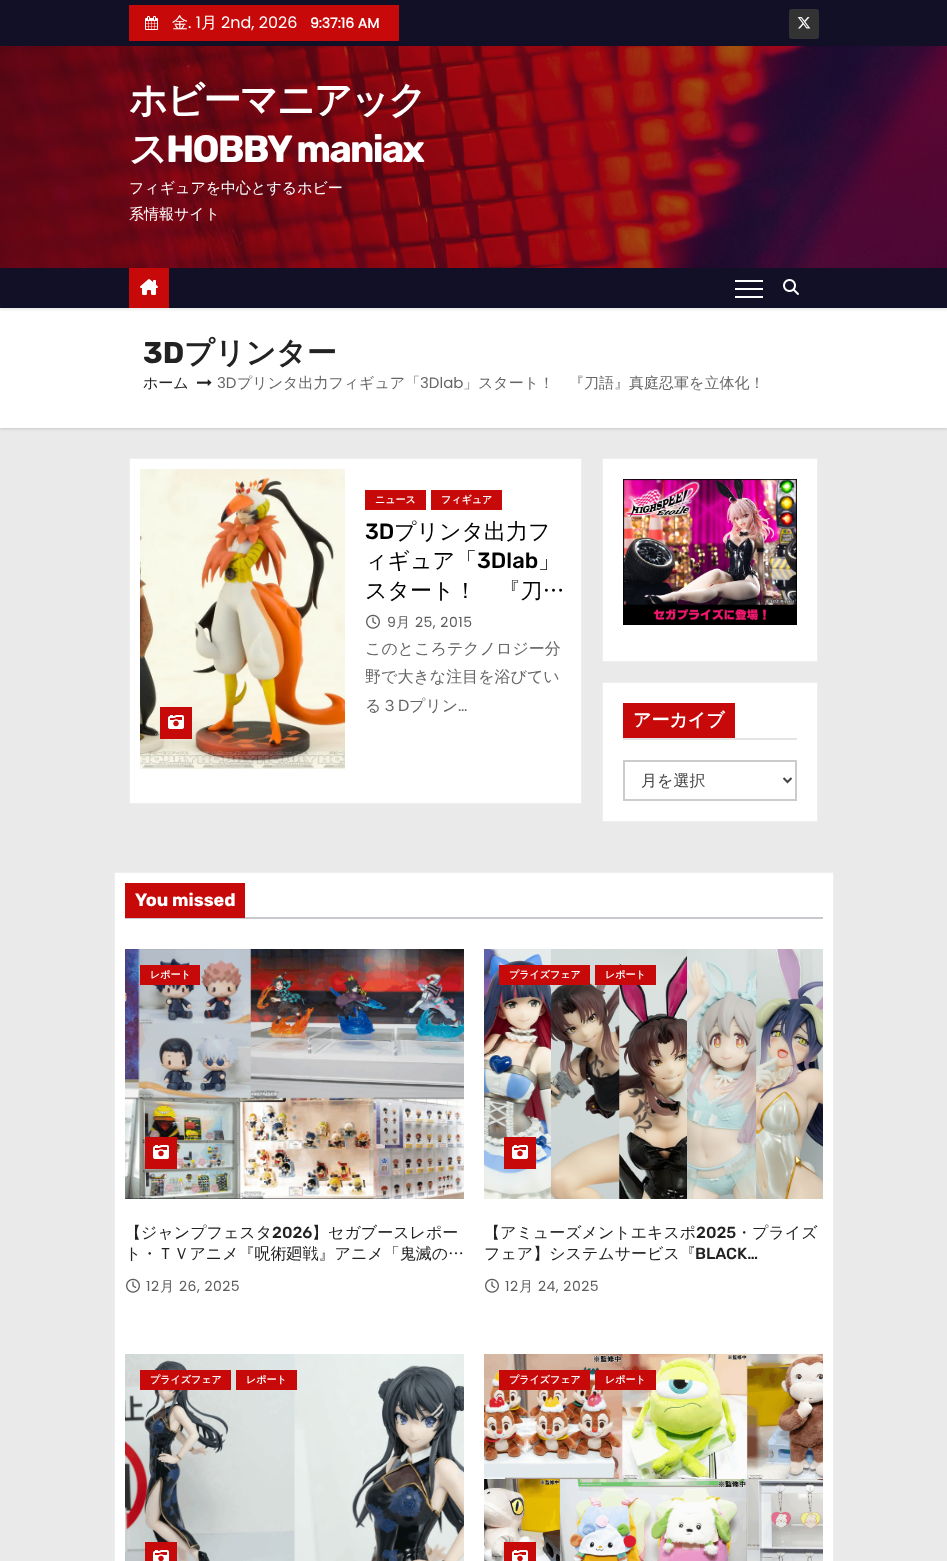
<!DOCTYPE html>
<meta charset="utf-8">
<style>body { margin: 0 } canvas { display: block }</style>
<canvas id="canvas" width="947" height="1561"></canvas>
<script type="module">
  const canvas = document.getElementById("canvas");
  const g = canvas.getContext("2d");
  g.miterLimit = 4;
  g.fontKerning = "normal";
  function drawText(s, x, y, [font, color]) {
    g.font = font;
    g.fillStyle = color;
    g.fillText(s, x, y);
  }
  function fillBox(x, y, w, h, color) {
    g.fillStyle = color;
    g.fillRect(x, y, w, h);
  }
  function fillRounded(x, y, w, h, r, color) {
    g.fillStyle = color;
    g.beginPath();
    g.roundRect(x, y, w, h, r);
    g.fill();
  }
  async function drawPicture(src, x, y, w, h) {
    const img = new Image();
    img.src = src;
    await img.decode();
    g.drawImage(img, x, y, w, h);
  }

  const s1 = ["500 16px WenQuanYi Zen Hei", "#FFFFFF"];
  const s2 = ["16px Poppins", "#FFFFFF"];
  const s3 = ["bold 14px Poppins", "#FFFFFF"];
  const s4 = ["bold 38px WenQuanYi Zen Hei", "#FFFFFF"];
  const s5 = ["bold 38px Rubik", "#FFFFFF"];
  const s6 = ["500 15px WenQuanYi Zen Hei", "#FFFFFF"];
  const s7 = ["bold 30px Rubik", "#222222"];
  const s8 = ["bold 30px WenQuanYi Zen Hei", "#222222"];
  const s9 = ["500 15px WenQuanYi Zen Hei", "#222222"];
  const s10 = ["15px Poppins", "#666666"];
  const s11 = ["500 15px WenQuanYi Zen Hei", "#666666"];
  const s12 = ["bold 10px WenQuanYi Zen Hei", "#FFFFFF"];
  const s13 = ["500 22px Rubik", "#000000"];
  const s14 = ["500 22px WenQuanYi Zen Hei", "#000000"];
  const s15 = ["14px Poppins", "#5C5C5C"];
  const s16 = ["500 14px WenQuanYi Zen Hei", "#5C5C5C"];
  const s17 = ["500 16px WenQuanYi Zen Hei", "#666666"];
  const s18 = ["16px Poppins", "#666666"];
  const s19 = ["bold 18px WenQuanYi Zen Hei", "#FFFFFF"];
  const s20 = ["500 16px WenQuanYi Zen Hei", "#444444"];
  const s21 = ["bold 18px Rubik", "#FFFFFF"];
  const s22 = ["500 16px WenQuanYi Zen Hei", "#222222"];
  const s23 = ["500 16px Rubik", "#222222"];

  fillBox(0, 0, 947, 1561, "#EAEAEA");
  fillBox(0, 0, 947, 46, "#121026");
  fillBox(129, 5, 270, 36, "#C70909");
  await drawPicture("pic1.png", 145, 16, 13, 14);
  drawText("金", 172, 28, s1);
  drawText(". 1", 188, 28, s2);
  drawText("月", 201, 28, s1);
  drawText("2nd, 2026", 221, 28, s2);
  drawText("9:37:16 AM", 310, 28, s3);
  fillRounded(789, 9, 30, 30, 3, "#333333");
  await drawPicture("pic2.png", 797, 17, 14, 12);
  await drawPicture("pic3.png", 0, 46, 947, 222);
  g.letterSpacing = "-1.75px";
  drawText("ホビーマニアック", 129, 113, s4);
  drawText("ス", 129, 162, s4);
  drawText("HOBBY maniax", 166, 162, s5);
  g.letterSpacing = "0px";
  drawText("フィギュアを中心とするホビー", 129, 193, s6);
  drawText("系情報サイト", 129, 219, s6);
  g.fillStyle = "rgba(0, 0, 0, 0.15)";
  g.filter = "blur(1.5px)";
  g.beginPath();
  g.rect(0, 309, 947, 120);
  g.fill();
  g.filter = "none";
  fillBox(0, 308, 947, 120, "#FFFFFF");
  g.fillStyle = "rgba(0, 0, 0, 0.08)";
  g.filter = "blur(1px)";
  g.beginPath();
  g.rect(0, 270, 947, 40);
  g.fill();
  g.filter = "none";
  fillBox(0, 268, 947, 40, "#121026");
  fillBox(129, 268, 40, 40, "#C70909");
  await drawPicture("pic4.png", 140, 279, 18, 16);
  fillBox(735, 280, 28, 2, "#FFFFFF");
  fillBox(735, 288, 28, 2, "#FFFFFF");
  fillBox(735, 296, 28, 2, "#FFFFFF");
  await drawPicture("pic5.png", 783, 279, 16, 16);
  drawText("3D", 143, 363, s7);
  drawText("プリンター", 184, 363, s8);
  drawText("ホーム", 143, 388, s9);
  await drawPicture("pic6.png", 197, 379, 15, 7);
  drawText("3D", 217, 388, s10);
  drawText("プリンタ出力フィギュア「", 237, 388, s11);
  drawText("3Dlab", 420, 388, s10);
  drawText("」スタート！　『刀語』真庭忍軍を立体化！", 463, 388, s11);
  g.fillStyle = "#FFFFFF";
  g.beginPath();
  g.rect(129.5, 458.5, 452, 345);
  g.fill();
  g.strokeStyle = "#EEEEEE";
  g.stroke();
  await drawPicture("pic7.png", 140, 469, 205, 300);
  fillBox(160, 707, 32, 32, "#C70909");
  await drawPicture("pic8.png", 168, 715, 16, 14);
  fillBox(365, 490, 61, 20, "#C70909");
  drawText("ニュース", 375, 503, s12);
  fillBox(431, 490, 71, 20, "#C70909");
  drawText("フィギュア", 441, 503, s12);
  drawText("3D", 365, 539, s13);
  drawText("プリンタ出力フ", 394, 539, s14);
  drawText("ィギュア「", 365, 568, s14);
  drawText("3Dlab", 477, 568, s13);
  drawText("」", 538, 568, s14);
  drawText("スタート！　『刀…", 365, 598, s14);
  await drawPicture("pic9.png", 366, 614, 14, 15);
  g.letterSpacing = "0.5px";
  drawText("9", 387, 627, s15);
  drawText("月", 396, 627, s16);
  drawText("25, 2015", 415, 627, s15);
  g.letterSpacing = "0px";
  drawText("このところテクノロジー分", 365, 654, s17);
  drawText("野で大きな注目を浴びてい", 365, 682, s17);
  drawText("る３", 365, 711, s17);
  drawText("D", 398, 711, s18);
  drawText("プリン", 409, 711, s17);
  drawText("…", 458, 711, s18);
  g.fillStyle = "#FFFFFF";
  g.beginPath();
  g.rect(602.5, 458.5, 215, 203);
  g.fill();
  g.stroke();
  await drawPicture("pic10.png", 623, 479, 174, 146);
  g.beginPath();
  g.rect(602.5, 682.5, 215, 139);
  g.fill();
  g.stroke();
  fillBox(623, 738, 174, 2, "#E4E4E4");
  fillBox(623, 703, 112, 35, "#C70909");
  drawText("アーカイブ", 633, 726, s19);
  g.strokeStyle = "#CCCCCC";
  g.lineWidth = 2;
  g.strokeRect(624, 761, 172, 39);
  g.beginPath();
  g.moveTo(783.5, 778);
  g.lineTo(787.5, 782);
  g.lineTo(791.5, 778);
  g.strokeStyle = "#444444";
  g.stroke();
  drawText("月を選択", 641, 786, s20);
  g.fillStyle = "#FFFFFF";
  g.beginPath();
  g.rect(114.5, 872.5, 719, 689);
  g.fill();
  g.strokeStyle = "#EEEEEE";
  g.lineWidth = 1;
  g.stroke();
  fillBox(125, 917, 698, 2, "#C8C8CD");
  fillBox(125, 883, 120, 35, "#C70909");
  drawText("You missed", 135, 906, s21);
  fillBox(125, 949, 339, 250, "#333333");
  await drawPicture("pic11.png", 125, 949, 339, 250);
  fillBox(140, 965, 60, 20, "#C70909");
  drawText("レポート", 150, 978, s12);
  fillBox(145, 1137, 32, 32, "#C70909");
  await drawPicture("pic8.png", 153, 1145, 16, 14);
  drawText("【ジャンプフェスタ", 125, 1238, s22);
  drawText("2026", 272, 1238, s23);
  drawText("】セガブースレポー", 312, 1238, s22);
  drawText("ト・ＴＶアニメ『呪術廻戦』アニメ「鬼滅の…", 125, 1259, s22);
  await drawPicture("pic9.png", 126, 1278, 14, 15);
  g.letterSpacing = "0.5px";
  drawText("12", 146, 1291, s15);
  drawText("月", 160, 1291, s16);
  drawText("26, 2025", 179, 1291, s15);
  await drawPicture("pic12.png", 484, 949, 339, 250);
  fillBox(499, 965, 91, 20, "#C70909");
  g.letterSpacing = "0px";
  drawText("プライズフェア", 509, 978, s12);
  fillBox(595, 965, 61, 20, "#C70909");
  drawText("レポート", 605, 978, s12);
  fillBox(504, 1137, 32, 32, "#C70909");
  await drawPicture("pic8.png", 512, 1145, 16, 14);
  drawText("【アミューズメントエキスポ", 484, 1238, s22);
  drawText("2025", 696, 1238, s23);
  drawText("・プライズ", 736, 1238, s22);
  drawText("フェア】システムサービス『", 484, 1259, s22);
  drawText("BLACK…", 695, 1259, s23);
  await drawPicture("pic9.png", 485, 1278, 14, 15);
  g.letterSpacing = "0.5px";
  drawText("12", 505, 1291, s15);
  drawText("月", 519, 1291, s16);
  drawText("24, 2025", 538, 1291, s15);
  await drawPicture("pic13.png", 125, 1354, 339, 207);
  fillBox(140, 1370, 91, 20, "#C70909");
  g.letterSpacing = "0px";
  drawText("プライズフェア", 150, 1383, s12);
  fillBox(236, 1370, 61, 20, "#C70909");
  drawText("レポート", 246, 1383, s12);
  fillBox(145, 1542, 32, 19, "#C70909");
  await drawPicture("pic14.png", 153, 1550, 16, 11);
  await drawPicture("pic15.png", 484, 1354, 339, 207);
  fillBox(499, 1370, 91, 20, "#C70909");
  drawText("プライズフェア", 509, 1383, s12);
  fillBox(595, 1370, 61, 20, "#C70909");
  drawText("レポート", 605, 1383, s12);
  fillBox(504, 1542, 32, 19, "#C70909");
  await drawPicture("pic14.png", 512, 1550, 16, 11);
</script>
